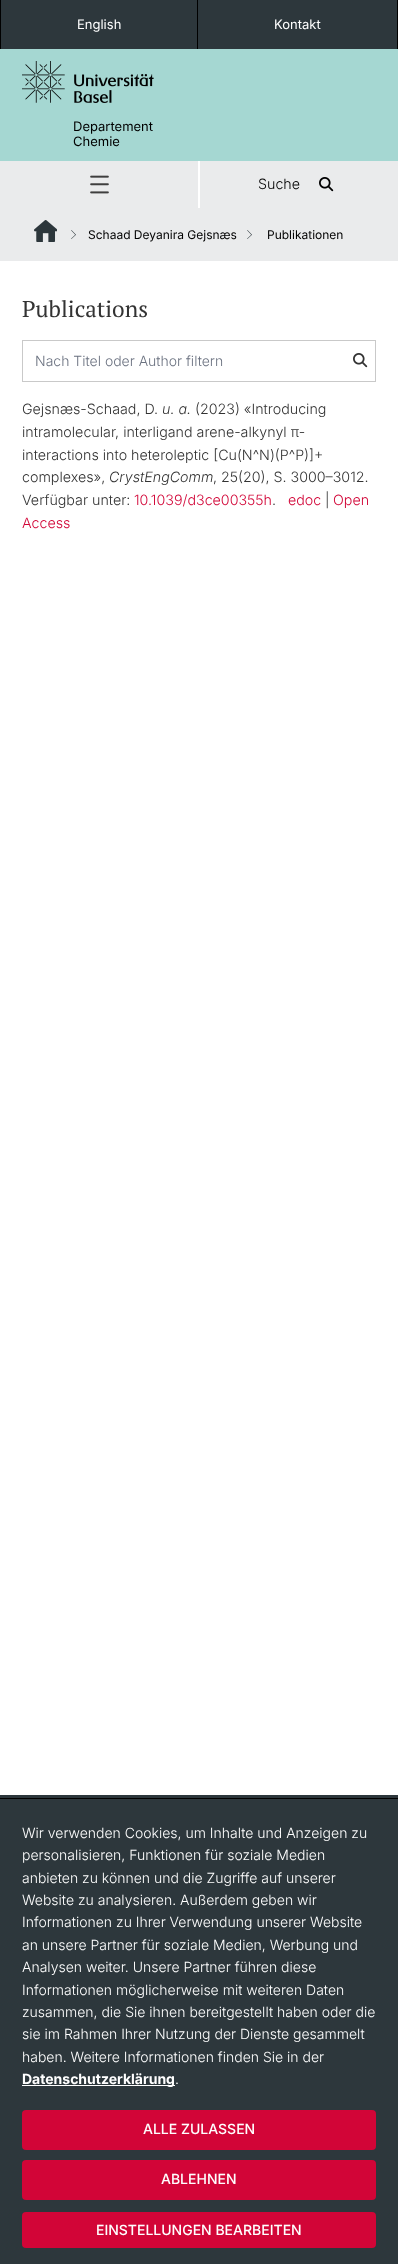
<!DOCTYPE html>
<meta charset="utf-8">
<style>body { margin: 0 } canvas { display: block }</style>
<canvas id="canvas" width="398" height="2264"></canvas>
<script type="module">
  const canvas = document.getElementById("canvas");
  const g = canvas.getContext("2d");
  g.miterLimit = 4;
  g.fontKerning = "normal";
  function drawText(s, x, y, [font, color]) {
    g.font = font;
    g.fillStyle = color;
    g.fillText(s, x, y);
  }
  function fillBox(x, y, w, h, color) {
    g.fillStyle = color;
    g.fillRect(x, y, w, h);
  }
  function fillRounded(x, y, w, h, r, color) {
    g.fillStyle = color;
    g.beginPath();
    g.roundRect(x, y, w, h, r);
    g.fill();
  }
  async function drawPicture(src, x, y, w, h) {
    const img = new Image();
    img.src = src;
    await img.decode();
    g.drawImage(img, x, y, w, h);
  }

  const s1 = ["13px Inter", "#FFFFFF"];
  const s2 = ["13px Inter", "#000000"];
  const s3 = ["300 14.25px Inter", "#000000"];
  const s4 = ["12px Inter", "#000000"];
  const s5 = ["22.75px PT Serif", "#333333"];
  const s6 = ["300 14px Inter", "#6B7280"];
  const s7 = ["300 14.25px Inter", "#333333"];
  const s8 = ["italic 300 14.25px Inter", "#333333"];
  const s9 = ["300 14.25px Inter", "#D20537"];
  const s10 = ["300 14px Inter", "#FFFFFF"];
  const s11 = ["bold 14px Inter", "#FFFFFF"];
  const s12 = ["500 14px Inter", "#FFFFFF"];

  fillBox(0, 0, 398, 2264, "#FFFFFF");
  fillBox(1, 0, 396, 49, "#2D373C");
  fillBox(197, 0, 1, 49, "#000000");
  fillBox(0, 0, 1, 49, "#000000");
  drawText("English", 77, 29, s1);
  fillBox(397, 0, 1, 49, "#000000");
  drawText("Kontakt", 274, 29, s1);
  fillBox(0, 49, 398, 112, "#A5D7D2");
  await drawPicture("pic1.png", 22, 61, 132, 42);
  drawText("Departement", 73, 131, s2);
  drawText("Chemie", 73, 146, s2);
  fillBox(0, 161, 198, 47, "#EAEBEC");
  await drawPicture("pic2.png", 90, 175, 19, 19);
  fillBox(200, 161, 198, 47, "#EAEBEC");
  drawText("Suche", 258, 189, s3);
  await drawPicture("pic3.png", 319, 177, 15, 15);
  fillBox(0, 208, 398, 53, "#EAEBEC");
  await drawPicture("pic4.png", 34, 220, 23, 22);
  await drawPicture("pic5.png", 71, 230, 5, 9);
  drawText("Schaad Deyanira Gejsnæs", 88, 239, s4);
  await drawPicture("pic5.png", 247, 230, 5, 9);
  drawText("Publikationen", 267, 239, s4);
  drawText("Publications", 22, 317, s5);
  fillBox(22, 340, 354, 1, "#C9C9C9");
  fillBox(22, 381, 323, 1, "#C9C9C9");
  fillBox(22, 340, 1, 42, "#C9C9C9");
  drawText("Nach Titel oder Author filtern", 35, 366, s6);
  fillBox(375, 340, 1, 42, "#C9C9C9");
  fillBox(345, 381, 31, 1, "#C9C9C9");
  await drawPicture("pic6.png", 353, 353, 15, 15);
  drawText("Gejsnæs-Schaad, D.", 22, 414, s7);
  drawText("u. a.", 162, 414, s8);
  drawText("(2023) «Introducing", 195, 414, s7);
  drawText("intramolecular, interligand arene-alkynyl π-", 22, 437, s7);
  drawText("interactions into heteroleptic [Cu(N^N)(P^P)]+", 22, 460, s7);
  drawText("complexes»,", 22, 482, s7);
  drawText("CrystEngComm", 109, 482, s8);
  drawText(", 25(20), S. 3000–3012.", 213, 482, s7);
  drawText("Verfügbar unter:", 22, 505, s7);
  drawText("10.1039/d3ce00355h", 134, 505, s9);
  drawText(".", 272, 505, s7);
  drawText("edoc", 288, 505, s9);
  drawText("|", 325, 505, s7);
  drawText("Open", 333, 505, s9);
  drawText("Access", 22, 528, s9);
  fillBox(0, 1795, 398, 3, "#2D373C");
  g.fillStyle = "rgba(0, 0, 0, 0.19)";
  g.filter = "blur(5px)";
  g.beginPath();
  g.rect(5, 1803, 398, 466);
  g.fill();
  g.filter = "none";
  fillBox(0, 1799, 398, 465, "#2D373C");
  fillBox(0, 1798, 398, 1, "#000000");
  drawText("Wir verwenden Cookies, um Inhalte und Anzeigen zu", 22, 1838, s10);
  drawText("personalisieren, Funktionen für soziale Medien", 22, 1860, s10);
  drawText("anbieten zu können und die Zugriffe auf unserer", 22, 1883, s10);
  drawText("Website zu analysieren. Außerdem geben wir", 22, 1905, s10);
  drawText("Informationen zu Ihrer Verwendung unserer Website", 22, 1927, s10);
  drawText("an unsere Partner für soziale Medien, Werbung und", 22, 1950, s10);
  drawText("Analysen weiter. Unsere Partner führen diese", 22, 1972, s10);
  drawText("Informationen möglicherweise mit weiteren Daten", 22, 1995, s10);
  drawText("zusammen, die Sie ihnen bereitgestellt haben oder die", 22, 2017, s10);
  drawText("sie im Rahmen Ihrer Nutzung der Dienste gesammelt", 22, 2039, s10);
  drawText("haben. Weitere Informationen finden Sie in der", 22, 2062, s10);
  fillBox(22, 2085, 153, 1, "#FFFFFF");
  drawText("Datenschutzerklärung", 22, 2084, s11);
  drawText(".", 175, 2084, s10);
  fillRounded(22, 2110, 354, 40, 4, "#D20537");
  drawText("ALLE ZULASSEN", 143, 2134, s12);
  fillRounded(22, 2160, 354, 40, 4, "#D20537");
  drawText("ABLEHNEN", 161, 2184, s12);
  fillRounded(22, 2212, 354, 36, 4, "#D20537");
  drawText("EINSTELLUNGEN BEARBEITEN", 96, 2235, s12);
</script>
